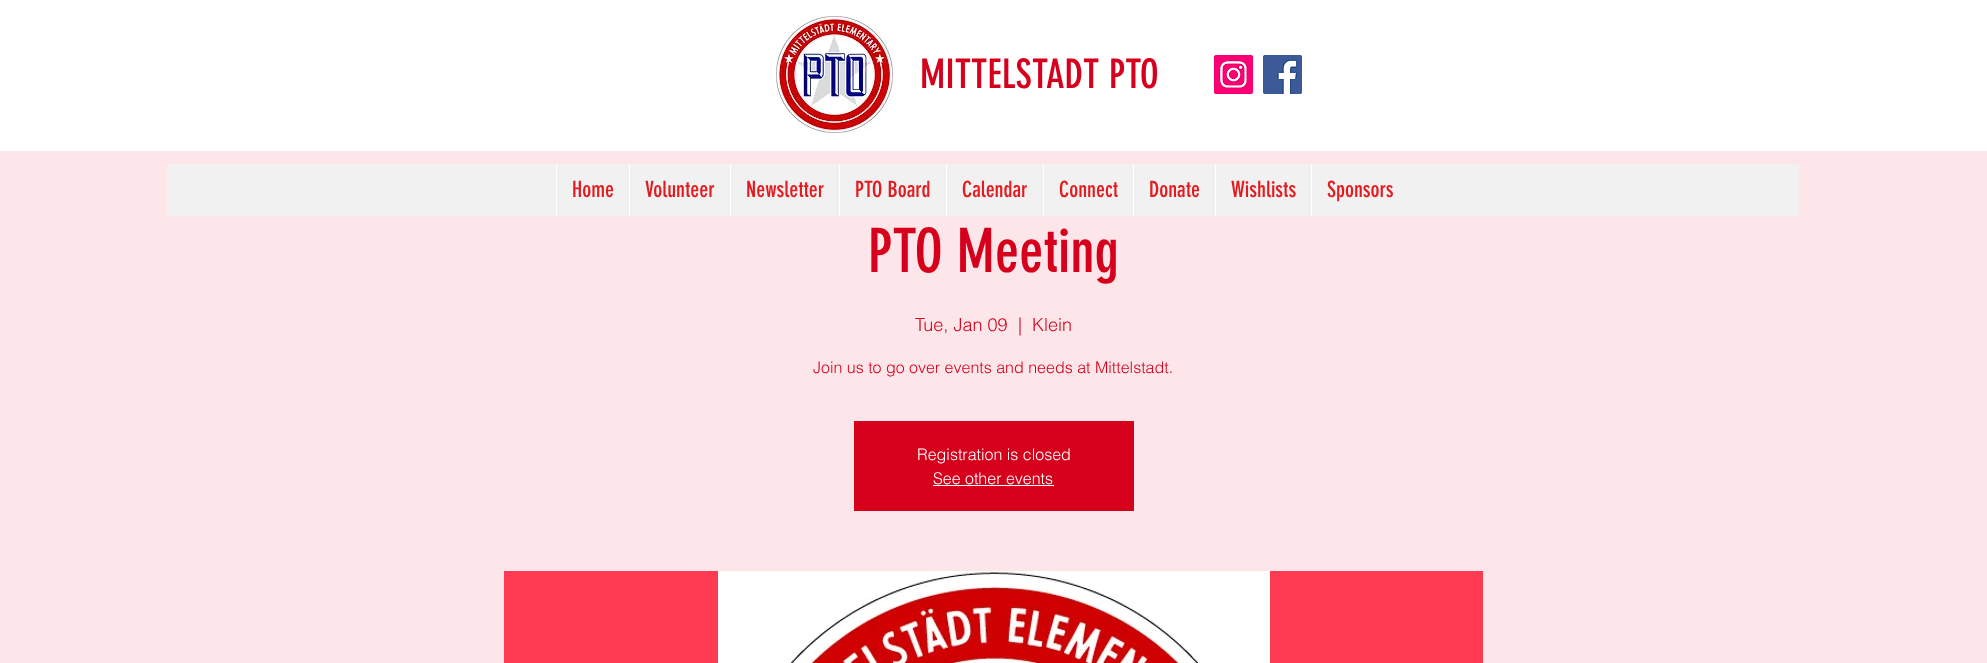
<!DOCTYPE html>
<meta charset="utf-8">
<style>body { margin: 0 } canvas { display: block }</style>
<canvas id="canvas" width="1987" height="663"></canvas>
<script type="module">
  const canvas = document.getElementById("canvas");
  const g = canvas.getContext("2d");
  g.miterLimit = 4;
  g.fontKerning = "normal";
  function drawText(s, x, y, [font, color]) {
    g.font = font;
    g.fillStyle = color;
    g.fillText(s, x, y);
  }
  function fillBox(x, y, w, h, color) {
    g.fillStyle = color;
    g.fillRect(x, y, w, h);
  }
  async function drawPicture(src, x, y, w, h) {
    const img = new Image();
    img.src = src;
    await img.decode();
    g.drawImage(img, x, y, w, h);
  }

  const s1 = ["40px 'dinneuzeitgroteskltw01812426'", "#D6001C"];
  const s2 = ["22px 'dinneuzeitgroteskltw01812426'", "#E21C21"];
  const s3 = ["60px 'dinneuzeitgroteskltw01812426'", "#D6001C"];
  const s4 = ["300 18px helvetica", "#D6001C"];
  const s5 = ["300 16px helvetica", "#D6001C"];
  const s6 = ["300 16px helvetica", "#FFFFFF"];

  fillBox(0, 0, 1987, 663, "#FFFFFF");
  await drawPicture("pic1.png", 776, 16, 117, 117);
  drawText("MITTELSTADT PTO", 920, 88, s1);
  await drawPicture("pic2.png", 1214, 55, 39, 39);
  await drawPicture("pic3.png", 1263, 55, 39, 39);
  fillBox(0, 151, 1987, 512, "#FCE6E9");
  fillBox(167, 164, 1632, 52, "#F1F1F1");
  fillBox(556, 164, 1, 52, "#FFFFFF");
  drawText("Home", 572, 197, s2);
  fillBox(629, 164, 1, 52, "#FFFFFF");
  drawText("Volunteer", 645, 197, s2);
  fillBox(730, 164, 1, 52, "#FFFFFF");
  drawText("Newsletter", 746, 197, s2);
  fillBox(839, 164, 1, 52, "#FFFFFF");
  drawText("PTO Board", 855, 197, s2);
  fillBox(946, 164, 1, 52, "#FFFFFF");
  drawText("Calendar", 962, 197, s2);
  fillBox(1043, 164, 1, 52, "#FFFFFF");
  drawText("Connect", 1059, 197, s2);
  fillBox(1133, 164, 1, 52, "#FFFFFF");
  drawText("Donate", 1149, 197, s2);
  fillBox(1215, 164, 1, 52, "#FFFFFF");
  drawText("Wishlists", 1231, 197, s2);
  fillBox(1311, 164, 1, 52, "#FFFFFF");
  drawText("Sponsors", 1327, 197, s2);
  drawText("PTO Meeting", 868, 272, s3);
  drawText("Tue, Jan 09", 915, 331, s4);
  drawText("|", 1018, 331, s4);
  drawText("Klein", 1032, 331, s4);
  drawText("Join us to go over events and needs at Mittelstadt.", 813, 373, s5);
  fillBox(854, 421, 280, 90, "#D6001C");
  drawText("Registration is closed", 917, 460, s6);
  drawText("See other events", 933, 484, s6);
  fillBox(933, 485, 121, 1, "#FFFFFF");
  fillBox(504, 571, 979, 92, "#FF3A53");
  await drawPicture("pic4.png", 718, 571, 552, 92);
</script>
